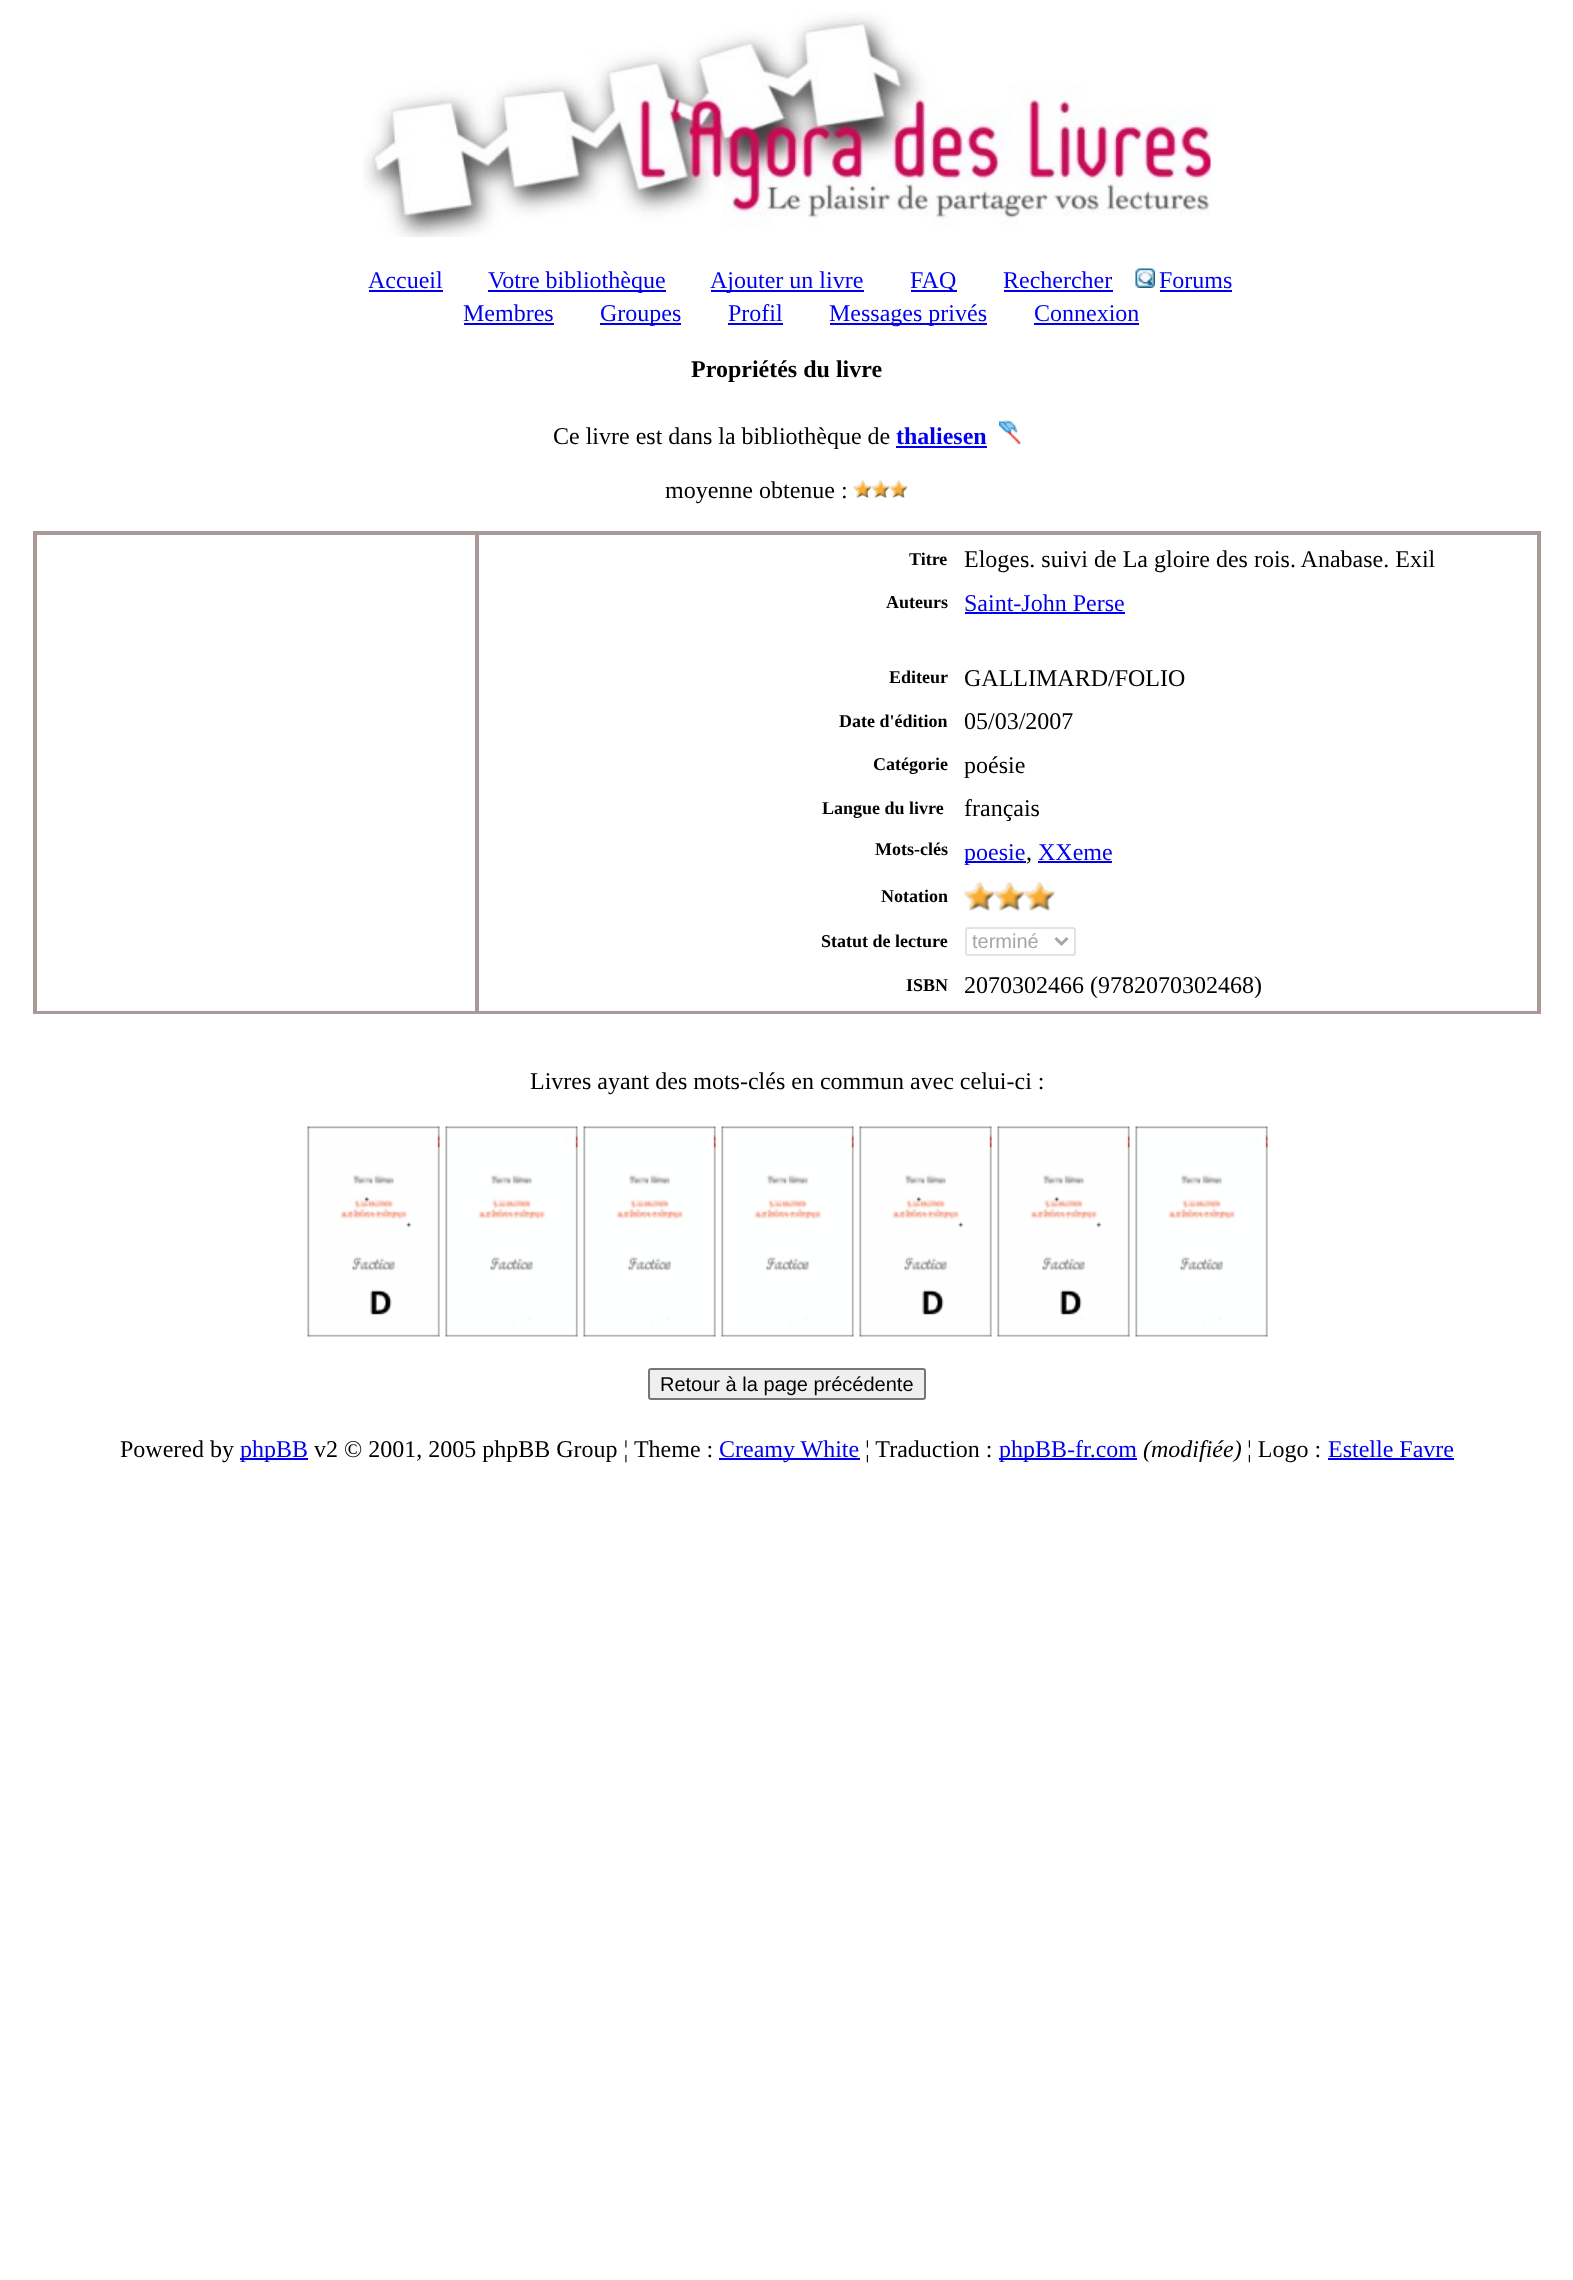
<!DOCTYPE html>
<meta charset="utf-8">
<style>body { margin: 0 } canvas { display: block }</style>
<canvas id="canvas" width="1573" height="2280"></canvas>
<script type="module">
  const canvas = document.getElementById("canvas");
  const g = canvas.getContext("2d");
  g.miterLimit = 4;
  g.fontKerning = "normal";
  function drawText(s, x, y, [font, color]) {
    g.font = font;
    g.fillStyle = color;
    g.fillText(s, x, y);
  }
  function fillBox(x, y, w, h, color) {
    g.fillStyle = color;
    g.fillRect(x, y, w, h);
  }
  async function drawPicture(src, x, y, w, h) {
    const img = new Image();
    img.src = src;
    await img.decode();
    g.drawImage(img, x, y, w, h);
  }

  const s1 = ["24px Liberation Serif", "#0000EE"];
  const s2 = ["bold 24px Liberation Serif", "#000000"];
  const s3 = ["24px Liberation Serif", "#000000"];
  const s4 = ["bold 24px Liberation Serif", "#0000EE"];
  const s5 = ["bold 18px Liberation Serif", "#000000"];
  const s6 = ["20px Liberation Sans", "#A6A6A6"];
  const s7 = ["20px Liberation Sans", "#000000"];
  const s8 = ["italic 24px Liberation Serif", "#000000"];

  fillBox(0, 0, 1573, 2280, "#FFFFFF");
  await drawPicture("pic1.png", 363, 12, 848, 225);
  drawText("Accueil", 368, 288, s1);
  fillBox(369, 290, 74, 2, "#0000EE");
  fillBox(488, 290, 178, 2, "#0000EE");
  drawText("Votre bibliothèque", 488, 288, s1);
  fillBox(711, 290, 153, 2, "#0000EE");
  drawText("Ajouter un livre", 710, 288, s1);
  fillBox(911, 290, 46, 2, "#0000EE");
  drawText("FAQ", 910, 288, s1);
  drawText("Rechercher", 1003, 288, s1);
  fillBox(1004, 290, 109, 2, "#0000EE");
  await drawPicture("pic2.png", 1135, 268, 20, 20);
  drawText("Forums", 1159, 288, s1);
  fillBox(1160, 290, 72, 2, "#0000EE");
  drawText("Membres", 463, 321, s1);
  fillBox(464, 323, 90, 2, "#0000EE");
  fillBox(600, 323, 81, 2, "#0000EE");
  drawText("Groupes", 600, 321, s1);
  drawText("Profil", 728, 321, s1);
  fillBox(728, 323, 55, 2, "#0000EE");
  fillBox(830, 323, 157, 2, "#0000EE");
  drawText("Messages privés", 829, 321, s1);
  drawText("Connexion", 1034, 321, s1);
  fillBox(1034, 323, 105, 2, "#0000EE");
  drawText("Propriétés du livre", 691, 377, s2);
  drawText("Ce livre est dans la bibliothèque de", 553, 444, s3);
  drawText("thaliesen", 896, 444, s4);
  fillBox(896, 446, 91, 2, "#0000EE");
  await drawPicture("pic3.png", 999, 420, 22, 24);
  drawText("moyenne obtenue :", 665, 498, s3);
  await drawPicture("pic4.png", 853, 480, 19, 18);
  await drawPicture("pic5.png", 871, 480, 19, 18);
  await drawPicture("pic5.png", 889, 480, 19, 18);
  g.strokeStyle = "#AB9999";
  g.lineWidth = 2;
  g.strokeRect(34, 532, 1506, 481);
  g.strokeRect(36, 534, 440, 478);
  g.strokeRect(478, 534, 1060, 478);
  drawText("Titre", 909, 565, s5);
  drawText("Eloges. suivi de La gloire des rois. Anabase. Exil", 964, 567, s3);
  drawText("Auteurs", 886, 608, s5);
  drawText("Saint-John Perse", 964, 611, s1);
  fillBox(965, 612, 160, 2, "#0000EE");
  drawText("Editeur", 889, 683, s5);
  drawText("GALLIMARD/FOLIO", 964, 686, s3);
  drawText("Date d'édition", 839, 727, s5);
  drawText("05/03/2007", 964, 729, s3);
  drawText("Catégorie", 873, 770, s5);
  drawText("poésie", 964, 773, s3);
  drawText("Langue du livre", 822, 814, s5);
  drawText("français", 964, 816, s3);
  drawText("Mots-clés", 875, 855, s5);
  fillBox(965, 861, 61, 2, "#0000EE");
  drawText("poesie", 964, 860, s1);
  drawText(",", 1026, 860, s3);
  fillBox(1038, 861, 74, 2, "#0000EE");
  drawText("XXeme", 1038, 860, s1);
  drawText("Notation", 881, 902, s5);
  await drawPicture("pic6.png", 964, 882, 31, 29);
  await drawPicture("pic7.png", 994, 882, 31, 29);
  await drawPicture("pic8.png", 1024, 882, 31, 29);
  drawText("Statut de lecture", 821, 947, s5);
  g.beginPath();
  g.roundRect(966, 928, 109, 27, 2);
  g.strokeStyle = "#E2E2E2";
  g.stroke();
  g.beginPath();
  g.moveTo(1055.5, 938);
  g.lineTo(1061.5, 944);
  g.lineTo(1067.5, 938);
  g.strokeStyle = "#A6A6A6";
  g.lineWidth = 3;
  g.stroke();
  drawText("terminé", 972, 948, s6);
  drawText("ISBN", 906, 991, s5);
  drawText("2070302466 (9782070302468)", 964, 993, s3);
  drawText("Livres ayant des mots-clés en commun avec celui-ci :", 530, 1089, s3);
  await drawPicture("pic9.png", 307, 1126, 133, 211);
  await drawPicture("pic10.png", 445, 1126, 133, 211);
  await drawPicture("pic11.png", 583, 1126, 133, 211);
  await drawPicture("pic12.png", 721, 1126, 133, 211);
  await drawPicture("pic13.png", 859, 1126, 133, 211);
  await drawPicture("pic13.png", 997, 1126, 133, 211);
  await drawPicture("pic14.png", 1135, 1126, 133, 211);
  g.fillStyle = "#EFEFEF";
  g.beginPath();
  g.roundRect(649, 1369, 276, 30, 2);
  g.fill();
  g.strokeStyle = "#767676";
  g.lineWidth = 2;
  g.stroke();
  drawText("Retour à la page précédente", 660, 1391, s7);
  drawText("Powered by", 120, 1457, s3);
  fillBox(240, 1458, 68, 2, "#0000EE");
  drawText("phpBB", 240, 1457, s1);
  drawText("v2 © 2001, 2005 phpBB Group ¦ Theme :", 314, 1457, s3);
  fillBox(719, 1458, 141, 2, "#0000EE");
  drawText("Creamy White", 719, 1457, s1);
  drawText("¦ Traduction :", 865, 1457, s3);
  fillBox(999, 1458, 138, 2, "#0000EE");
  drawText("phpBB-fr.com", 999, 1457, s1);
  drawText("(modifiée)", 1143, 1457, s8);
  drawText("¦ Logo :", 1247, 1457, s3);
  drawText("Estelle Favre", 1328, 1457, s1);
  fillBox(1328, 1458, 126, 2, "#0000EE");
</script>
